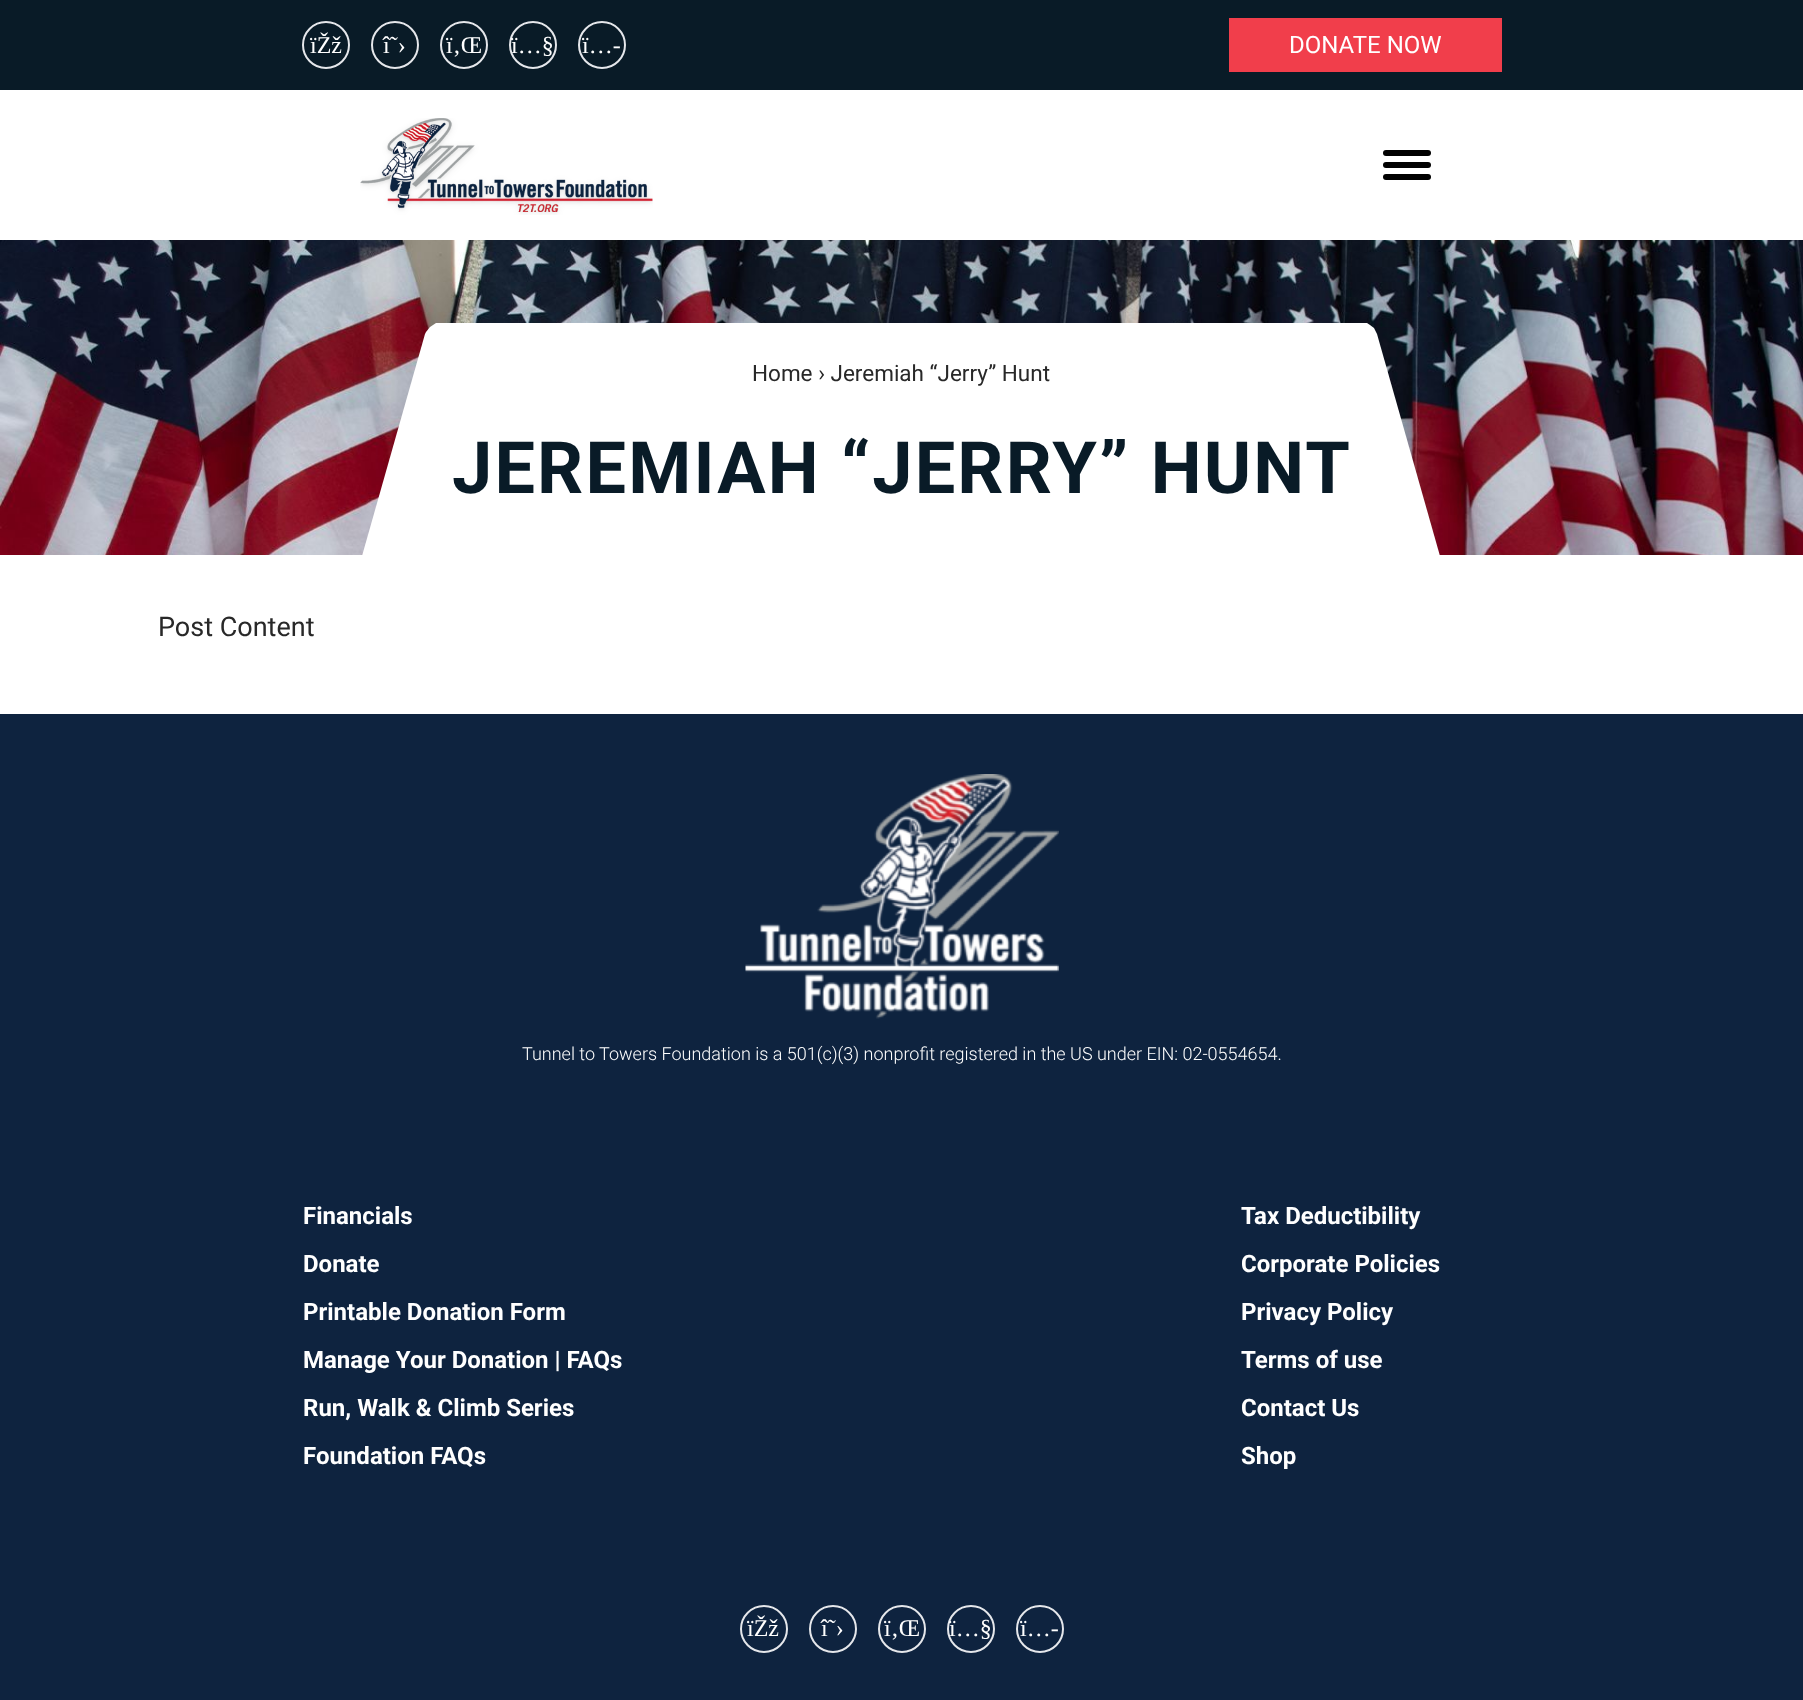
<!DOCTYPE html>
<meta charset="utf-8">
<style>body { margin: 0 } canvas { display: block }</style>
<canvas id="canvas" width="1803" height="1700"></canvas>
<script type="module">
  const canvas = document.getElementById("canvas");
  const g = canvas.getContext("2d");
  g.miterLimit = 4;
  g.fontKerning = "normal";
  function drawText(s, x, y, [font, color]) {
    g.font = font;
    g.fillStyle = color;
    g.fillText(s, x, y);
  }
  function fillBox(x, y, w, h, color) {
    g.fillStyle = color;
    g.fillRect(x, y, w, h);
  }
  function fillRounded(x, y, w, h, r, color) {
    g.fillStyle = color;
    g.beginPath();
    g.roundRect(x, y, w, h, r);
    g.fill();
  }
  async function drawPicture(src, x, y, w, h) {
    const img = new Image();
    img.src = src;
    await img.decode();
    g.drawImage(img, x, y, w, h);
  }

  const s1 = ["24px Liberation Serif", "#FFFFFF"];
  const s2 = ["24px Roboto", "#FFFFFF"];
  const s3 = ["22.5px Roboto", "#282828"];
  const s4 = ["bold 72px Roboto", "#091B27"];
  const s5 = ["27px Roboto", "#282828"];
  const s6 = ["300 18px Roboto", "#FFFFFF"];
  const s7 = ["bold 24px Roboto", "#FFFFFF"];

  fillBox(0, 0, 1803, 1700, "#FFFFFF");
  fillBox(0, 0, 1803, 90, "#091B27");
  g.beginPath();
  g.arc(326, 45, 23, 0, Math.PI * 2);
  g.strokeStyle = "#E5E7EB";
  g.lineWidth = 2;
  g.stroke();
  drawText("ïŽž", 310, 53, s1);
  g.beginPath();
  g.arc(395, 45, 23, 0, Math.PI * 2);
  g.stroke();
  drawText("î˜›", 383, 53, s1);
  g.beginPath();
  g.arc(464, 45, 23, 0, Math.PI * 2);
  g.stroke();
  drawText("ï‚Œ", 446, 53, s1);
  g.beginPath();
  g.arc(533, 45, 23, 0, Math.PI * 2);
  g.stroke();
  drawText("ï…§", 511, 53, s1);
  g.beginPath();
  g.arc(602, 45, 23, 0, Math.PI * 2);
  g.stroke();
  drawText("ï…-", 582, 53, s1);
  fillBox(1229, 18, 273, 54, "#F13E4B");
  drawText("DONATE NOW", 1289, 53, s2);
  await drawPicture("pic1.png", 360, 118, 293, 97);
  fillRounded(1383, 162, 48, 6, 3, "#000000");
  fillRounded(1383, 150, 48, 6, 3, "#000000");
  fillRounded(1383, 174, 48, 6, 3, "#000000");
  await drawPicture("pic2.png", 0, 240, 1803, 315);
  g.save();
  g.beginPath();
  g.rect(0, 240, 1803, 315);
  g.clip();
  g.fillStyle = "#FFFFFF";
  g.beginPath();
  g.moveTo(425, 334);
  g.lineTo(362, 556);
  g.lineTo(1440, 556);
  g.lineTo(1377, 334);
  g.lineTo(1374, 328);
  g.lineTo(1370, 325);
  g.lineTo(1367, 323);
  g.lineTo(436, 323);
  g.lineTo(430, 327);
  g.lineTo(426, 332);
  g.closePath();
  g.fill();
  g.restore();
  drawText("Home › Jeremiah “Jerry” Hunt", 752, 381, s3);
  g.letterSpacing = "2.2px";
  drawText("JEREMIAH “JERRY” HUNT", 452, 493, s4);
  g.letterSpacing = "0px";
  drawText("Post Content", 158, 636, s5);
  fillBox(0, 714, 1803, 986, "#0E233F");
  await drawPicture("pic3.png", 745, 774, 314, 245);
  drawText("Tunnel to Towers Foundation is a 501(c)(3) nonprofit registered in the US under EIN: 02-0554654.", 522, 1060, s6);
  drawText("Financials", 303, 1224, s7);
  drawText("Donate", 303, 1272, s7);
  drawText("Printable Donation Form", 303, 1320, s7);
  drawText("Manage Your Donation | FAQs", 303, 1368, s7);
  drawText("Run, Walk & Climb Series", 303, 1416, s7);
  drawText("Foundation FAQs", 303, 1464, s7);
  drawText("Tax Deductibility", 1241, 1224, s7);
  drawText("Corporate Policies", 1241, 1272, s7);
  drawText("Privacy Policy", 1241, 1320, s7);
  drawText("Terms of use", 1241, 1368, s7);
  drawText("Contact Us", 1241, 1416, s7);
  drawText("Shop", 1241, 1464, s7);
  g.beginPath();
  g.arc(764, 1629, 23, 0, Math.PI * 2);
  g.stroke();
  drawText("ïŽž", 747, 1636, s1);
  g.beginPath();
  g.arc(833, 1629, 23, 0, Math.PI * 2);
  g.stroke();
  drawText("î˜›", 821, 1636, s1);
  g.beginPath();
  g.arc(902, 1629, 23, 0, Math.PI * 2);
  g.stroke();
  drawText("ï‚Œ", 884, 1636, s1);
  g.beginPath();
  g.arc(971, 1629, 23, 0, Math.PI * 2);
  g.stroke();
  drawText("ï…§", 949, 1636, s1);
  g.beginPath();
  g.arc(1040, 1629, 23, 0, Math.PI * 2);
  g.stroke();
  drawText("ï…-", 1020, 1636, s1);
</script>
